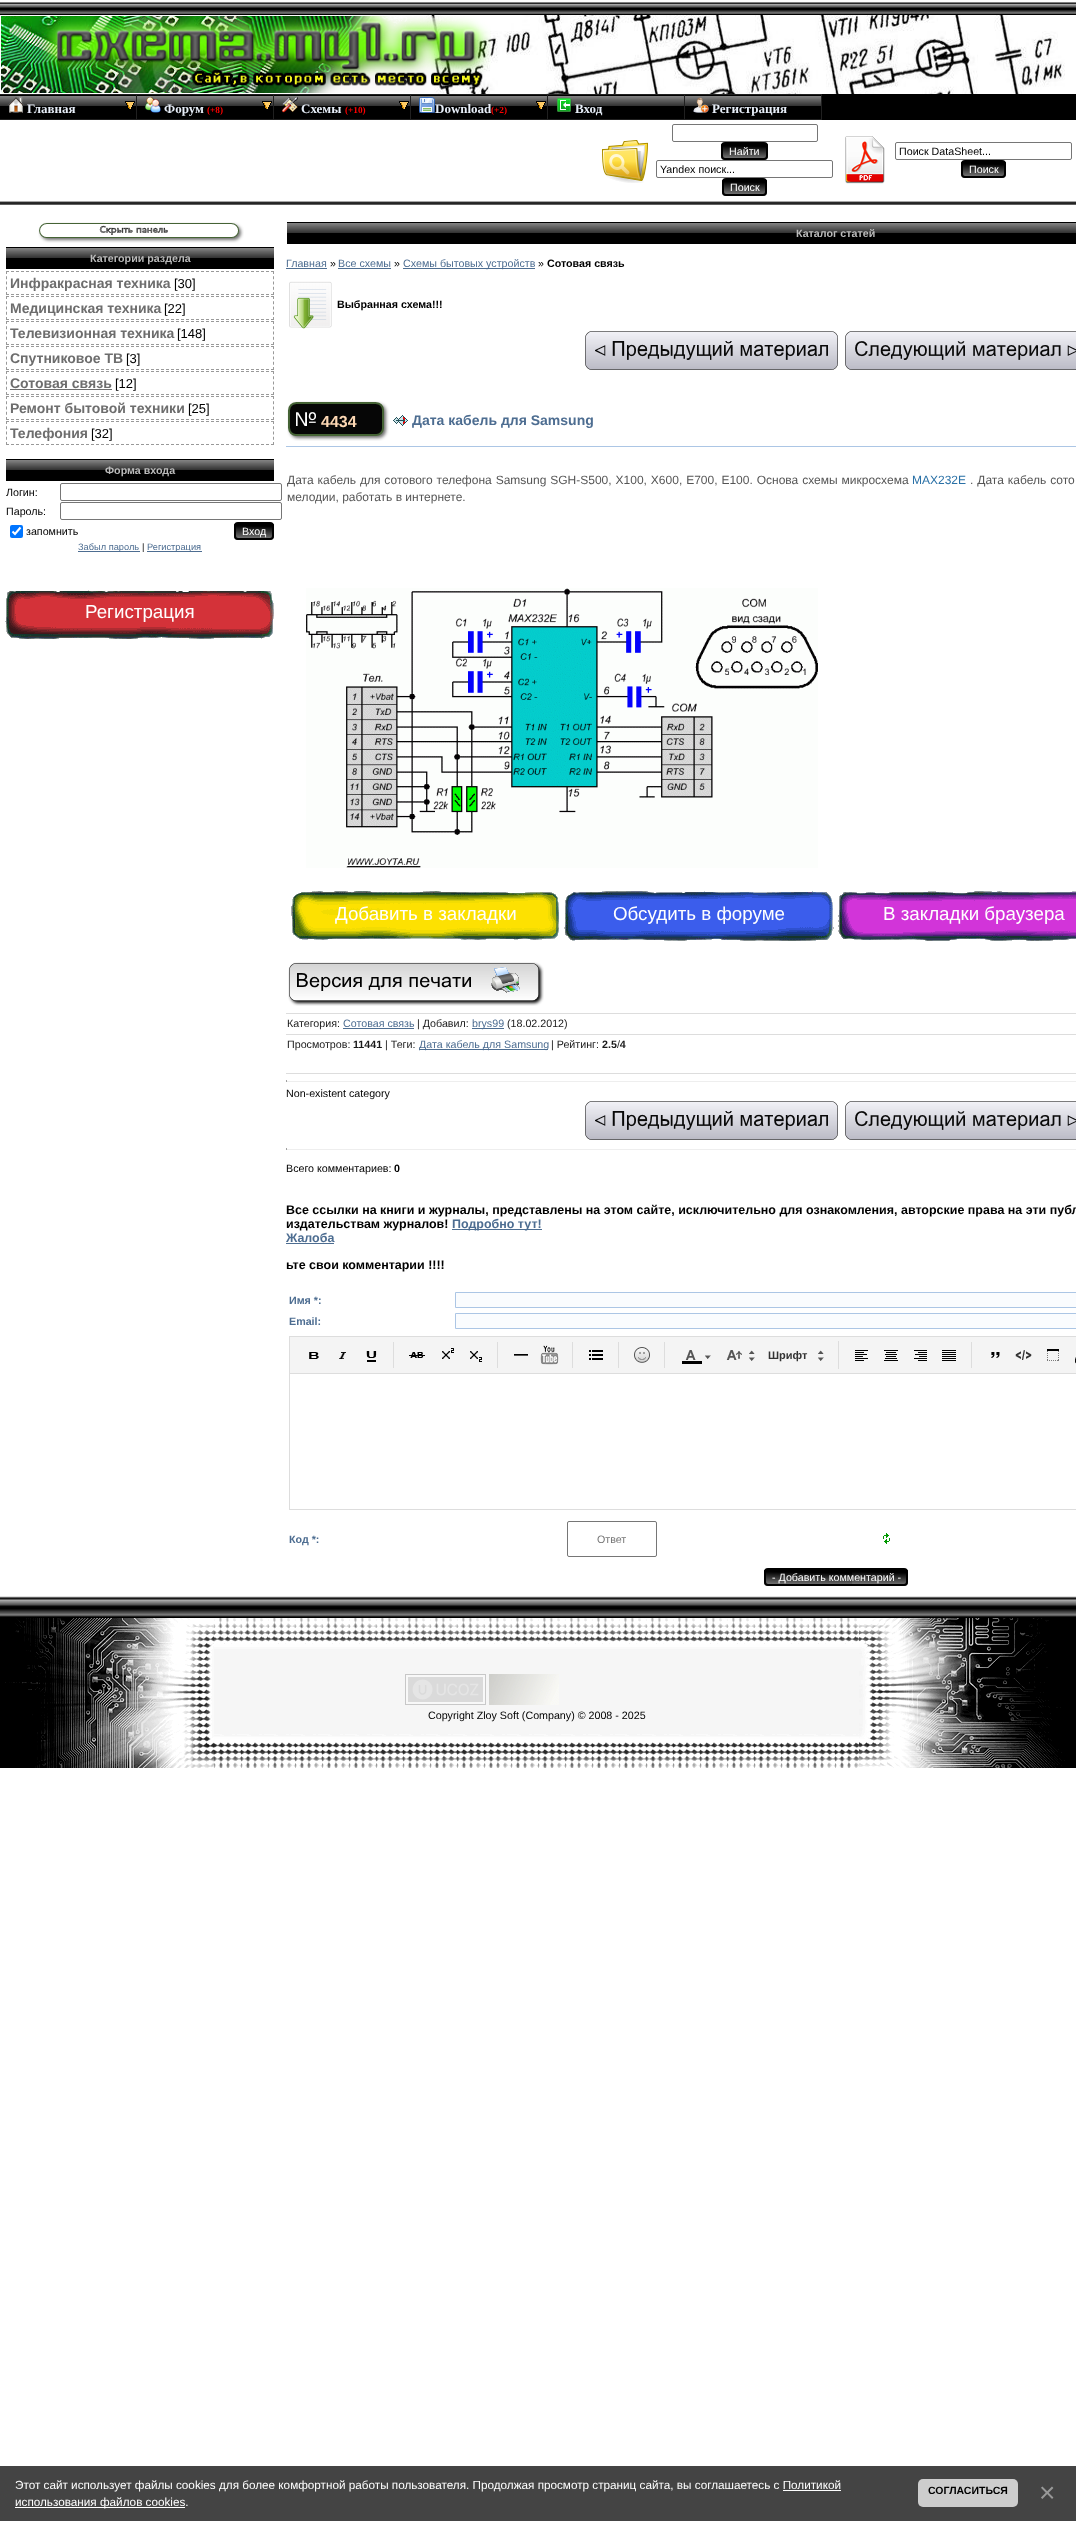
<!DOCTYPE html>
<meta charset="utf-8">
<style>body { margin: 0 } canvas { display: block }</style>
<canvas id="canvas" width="1076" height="2521"></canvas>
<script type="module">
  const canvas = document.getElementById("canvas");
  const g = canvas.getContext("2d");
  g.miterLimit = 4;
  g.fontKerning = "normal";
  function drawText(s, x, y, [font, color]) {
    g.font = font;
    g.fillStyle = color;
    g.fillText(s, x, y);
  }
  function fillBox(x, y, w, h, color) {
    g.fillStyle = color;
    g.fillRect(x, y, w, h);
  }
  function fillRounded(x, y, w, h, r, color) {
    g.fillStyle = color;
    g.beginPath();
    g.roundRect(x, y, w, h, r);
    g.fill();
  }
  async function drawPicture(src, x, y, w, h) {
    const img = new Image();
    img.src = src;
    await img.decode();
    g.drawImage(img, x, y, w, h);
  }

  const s1 = ["bold 13px Liberation Serif", "#E7EEF8"];
  const s2 = ["bold 9.25px Liberation Serif", "#FF0000"];
  const s3 = ["10.7px Liberation Sans", "#FFFFFF"];
  const s4 = ["10.7px Liberation Sans", "#000000"];
  const s5 = ["bold 10.7px Liberation Sans", "#BBBBBB"];
  const s6 = ["bold 14px Liberation Sans", "#6D6D6D"];
  const s7 = ["13px Liberation Sans", "#000000"];
  const s8 = ["9.25px Liberation Sans", "#4D6D91"];
  const s9 = ["9.25px Liberation Sans", "#000000"];
  const s10 = ["18.75px Liberation Sans", "#FFFFFF"];
  const s11 = ["10.7px Liberation Sans", "#4D6D91"];
  const s12 = ["bold 10.7px Liberation Sans", "#000000"];
  const s13 = ["bold 16px Liberation Sans", "#FCD7B3"];
  const s14 = ["bold 14px Liberation Sans", "#4D6D91"];
  const s15 = ["12px Liberation Sans", "#555555"];
  const s16 = ["12px Liberation Sans", "#2970A6"];
  const s17 = ["10.7px Liberation Sans", "#1A1A1A"];
  const s18 = ["bold 10.7px Liberation Sans", "#1A1A1A"];
  const s19 = ["bold 12.48px Liberation Sans", "#000000"];
  const s20 = ["bold 12.48px Liberation Sans", "#4D6D91"];
  const s21 = ["bold 10.7px Liberation Sans", "#4D6D91"];
  const s22 = ["bold 11px Liberation Sans", "#333333"];
  const s23 = ["10.7px Liberation Sans", "#757575"];
  const s24 = ["11.73px Liberation Sans", "#FFFFFF"];
  const s25 = ["bold 10.5px Liberation Sans", "#000000"];
  const s26 = ["28px Liberation Sans", "#999999"];

  fillBox(0, 0, 1076, 2521, "#FFFFFF");
  await drawPicture("pic1.png", 0, 2, 1076, 13);
  await drawPicture("pic2.png", 426, 15, 639, 79);
  await drawPicture("pic3.png", 1, 16, 490, 77);
  fillBox(0, 94, 1076, 26, "#000000");
  await drawPicture("pic4.png", 0, 96, 136, 10);
  fillBox(0, 94, 822, 1, "#202020");
  fillBox(136, 94, 1, 26, "#202020");
  fillBox(0, 119, 137, 1, "#202020");
  await drawPicture("pic5.png", 8, 97, 16, 16);
  drawText("Главная", 27, 113, s1);
  await drawPicture("pic6.png", 125, 101, 10, 8);
  await drawPicture("pic4.png", 137, 96, 136, 10);
  fillBox(273, 94, 1, 26, "#202020");
  fillBox(137, 119, 137, 1, "#202020");
  await drawPicture("pic7.png", 145, 97, 16, 16);
  drawText("Форум", 164, 113, s1);
  drawText("(+8)", 207, 113, s2);
  await drawPicture("pic6.png", 262, 101, 10, 8);
  await drawPicture("pic4.png", 274, 96, 136, 10);
  fillBox(410, 94, 1, 26, "#202020");
  fillBox(274, 119, 137, 1, "#202020");
  await drawPicture("pic8.png", 282, 97, 16, 16);
  drawText("Схемы", 301, 113, s1);
  drawText("(+10)", 345, 113, s2);
  await drawPicture("pic6.png", 399, 101, 10, 8);
  await drawPicture("pic4.png", 411, 96, 136, 10);
  fillBox(547, 94, 1, 26, "#202020");
  fillBox(411, 119, 137, 1, "#202020");
  await drawPicture("pic9.png", 419, 97, 16, 16);
  drawText("Download", 435, 113, s1);
  drawText("(+2)", 491, 113, s2);
  await drawPicture("pic6.png", 536, 101, 10, 8);
  await drawPicture("pic4.png", 548, 96, 136, 10);
  fillBox(684, 94, 1, 26, "#202020");
  fillBox(548, 119, 137, 1, "#202020");
  await drawPicture("pic10.png", 557, 98, 15, 14);
  drawText("Вход", 575, 113, s1);
  await drawPicture("pic4.png", 685, 96, 136, 10);
  fillBox(821, 94, 1, 26, "#202020");
  fillBox(685, 119, 137, 1, "#202020");
  await drawPicture("pic11.png", 693, 97, 16, 16);
  drawText("Регистрация", 712, 113, s1);
  await drawPicture("pic12.png", 602, 140, 46, 43);
  g.beginPath();
  g.roundRect(672.5, 124.5, 145, 17, 1.5);
  g.strokeStyle = "#767676";
  g.stroke();
  await drawPicture("pic13.png", 721, 144, 47, 16);
  g.beginPath();
  g.roundRect(722, 143, 45, 16, 3);
  g.strokeStyle = "#000000";
  g.lineWidth = 2;
  g.stroke();
  drawText("Найти", 729, 155, s3);
  g.beginPath();
  g.roundRect(656.5, 160.5, 176, 17, 1.5);
  g.strokeStyle = "#767676";
  g.lineWidth = 1;
  g.stroke();
  drawText("Yandex поиск...", 660, 173, s4);
  await drawPicture("pic14.png", 722, 180, 45, 16);
  g.beginPath();
  g.roundRect(723, 179, 43, 16, 3);
  g.strokeStyle = "#000000";
  g.lineWidth = 2;
  g.stroke();
  drawText("Поиск", 730, 191, s3);
  await drawPicture("pic15.png", 845, 136, 40, 48);
  g.beginPath();
  g.roundRect(895.5, 142.5, 176, 17, 1.5);
  g.strokeStyle = "#767676";
  g.lineWidth = 1;
  g.stroke();
  drawText("Поиск DataSheet...", 899, 155, s4);
  await drawPicture("pic14.png", 961, 162, 45, 16);
  g.beginPath();
  g.roundRect(962, 161, 43, 16, 3);
  g.strokeStyle = "#000000";
  g.lineWidth = 2;
  g.stroke();
  drawText("Поиск", 969, 173, s3);
  await drawPicture("pic16.png", 0, 201, 1076, 4);
  await drawPicture("pic17.png", 38, 222, 206, 21);
  await drawPicture("pic18.png", 6, 247, 268, 22);
  drawText("Категории раздела", 90, 262, s5);
  g.beginPath();
  g.moveTo(6, 271.5);
  g.lineTo(274, 271.5);
  g.strokeStyle = "#999999";
  g.lineWidth = 1;
  g.setLineDash([3, 2]);
  g.stroke();
  g.beginPath();
  g.moveTo(273.5, 271);
  g.lineTo(273.5, 295);
  g.setLineDash([3, 2.25]);
  g.stroke();
  g.beginPath();
  g.moveTo(6, 294.5);
  g.lineTo(274, 294.5);
  g.setLineDash([3, 2]);
  g.stroke();
  g.beginPath();
  g.moveTo(6.5, 271);
  g.lineTo(6.5, 295);
  g.setLineDash([3, 2.25]);
  g.stroke();
  drawText("Инфракрасная техника", 10, 288, s6);
  drawText("[30]", 174, 288, s7);
  g.beginPath();
  g.moveTo(6, 296.5);
  g.lineTo(274, 296.5);
  g.setLineDash([3, 2]);
  g.stroke();
  g.beginPath();
  g.moveTo(273.5, 296);
  g.lineTo(273.5, 320);
  g.setLineDash([3, 2.25]);
  g.stroke();
  g.beginPath();
  g.moveTo(6, 319.5);
  g.lineTo(274, 319.5);
  g.setLineDash([3, 2]);
  g.stroke();
  g.beginPath();
  g.moveTo(6.5, 296);
  g.lineTo(6.5, 320);
  g.setLineDash([3, 2.25]);
  g.stroke();
  drawText("Медицинская техника", 10, 313, s6);
  drawText("[22]", 164, 313, s7);
  g.beginPath();
  g.moveTo(6, 321.5);
  g.lineTo(274, 321.5);
  g.setLineDash([3, 2]);
  g.stroke();
  g.beginPath();
  g.moveTo(273.5, 321);
  g.lineTo(273.5, 345);
  g.setLineDash([3, 2.25]);
  g.stroke();
  g.beginPath();
  g.moveTo(6, 344.5);
  g.lineTo(274, 344.5);
  g.setLineDash([3, 2]);
  g.stroke();
  g.beginPath();
  g.moveTo(6.5, 321);
  g.lineTo(6.5, 345);
  g.setLineDash([3, 2.25]);
  g.stroke();
  drawText("Телевизионная техника", 10, 338, s6);
  drawText("[148]", 177, 338, s7);
  g.beginPath();
  g.moveTo(6, 346.5);
  g.lineTo(274, 346.5);
  g.setLineDash([3, 2]);
  g.stroke();
  g.beginPath();
  g.moveTo(273.5, 346);
  g.lineTo(273.5, 370);
  g.setLineDash([3, 2.25]);
  g.stroke();
  g.beginPath();
  g.moveTo(6, 369.5);
  g.lineTo(274, 369.5);
  g.setLineDash([3, 2]);
  g.stroke();
  g.beginPath();
  g.moveTo(6.5, 346);
  g.lineTo(6.5, 370);
  g.setLineDash([3, 2.25]);
  g.stroke();
  drawText("Спутниковое ТВ", 10, 363, s6);
  drawText("[3]", 126, 363, s7);
  g.beginPath();
  g.moveTo(6, 371.5);
  g.lineTo(274, 371.5);
  g.setLineDash([3, 2]);
  g.stroke();
  g.beginPath();
  g.moveTo(273.5, 371);
  g.lineTo(273.5, 395);
  g.setLineDash([3, 2.25]);
  g.stroke();
  g.beginPath();
  g.moveTo(6, 394.5);
  g.lineTo(274, 394.5);
  g.setLineDash([3, 2]);
  g.stroke();
  g.beginPath();
  g.moveTo(6.5, 371);
  g.lineTo(6.5, 395);
  g.setLineDash([3, 2.25]);
  g.stroke();
  drawText("Сотовая связь", 10, 388, s6);
  fillBox(10, 389, 102, 1, "#6D6D6D");
  drawText("[12]", 115, 388, s7);
  g.beginPath();
  g.moveTo(6, 396.5);
  g.lineTo(274, 396.5);
  g.setLineDash([3, 2]);
  g.stroke();
  g.beginPath();
  g.moveTo(273.5, 396);
  g.lineTo(273.5, 420);
  g.setLineDash([3, 2.25]);
  g.stroke();
  g.beginPath();
  g.moveTo(6, 419.5);
  g.lineTo(274, 419.5);
  g.setLineDash([3, 2]);
  g.stroke();
  g.beginPath();
  g.moveTo(6.5, 396);
  g.lineTo(6.5, 420);
  g.setLineDash([3, 2.25]);
  g.stroke();
  drawText("Ремонт бытовой техники", 10, 413, s6);
  drawText("[25]", 188, 413, s7);
  g.beginPath();
  g.moveTo(6, 421.5);
  g.lineTo(274, 421.5);
  g.setLineDash([3, 2]);
  g.stroke();
  g.beginPath();
  g.moveTo(273.5, 421);
  g.lineTo(273.5, 445);
  g.setLineDash([3, 2.25]);
  g.stroke();
  g.beginPath();
  g.moveTo(6, 444.5);
  g.lineTo(274, 444.5);
  g.setLineDash([3, 2]);
  g.stroke();
  g.beginPath();
  g.moveTo(6.5, 421);
  g.lineTo(6.5, 445);
  g.setLineDash([3, 2.25]);
  g.stroke();
  drawText("Телефония", 10, 438, s6);
  drawText("[32]", 91, 438, s7);
  await drawPicture("pic18.png", 6, 459, 268, 22);
  drawText("Форма входа", 105, 474, s5);
  drawText("Логин:", 6, 496, s4);
  g.beginPath();
  g.roundRect(60.5, 483.5, 221, 17, 1.5);
  g.strokeStyle = "#767676";
  g.setLineDash([]);
  g.stroke();
  drawText("Пароль:", 6, 515, s4);
  g.beginPath();
  g.roundRect(60.5, 502.5, 221, 17, 1.5);
  g.stroke();
  fillRounded(10, 525, 13, 13, 2, "#0075FF");
  g.beginPath();
  g.moveTo(12.5, 531.5);
  g.lineTo(15, 534);
  g.lineTo(20.5, 527.5);
  g.strokeStyle = "#FFFFFF";
  g.lineWidth = 2.1;
  g.stroke();
  drawText("запомнить", 26, 535, s4);
  await drawPicture("pic19.png", 234, 524, 40, 16);
  g.beginPath();
  g.roundRect(235, 523, 38, 16, 3);
  g.strokeStyle = "#000000";
  g.lineWidth = 2;
  g.stroke();
  drawText("Вход", 242, 535, s3);
  fillBox(78, 551, 62, 1, "#4D6D91");
  drawText("Забыл пароль", 78, 550, s8);
  drawText("|", 142, 550, s9);
  fillBox(147, 551, 55, 1, "#4D6D91");
  drawText("Регистрация", 147, 550, s8);
  await drawPicture("pic20.png", 5, 590, 269, 49);
  drawText("Регистрация", 85, 618, s10);
  await drawPicture("pic21.png", 287, 222, 789, 22);
  drawText("Каталог статей", 796, 237, s5);
  drawText("Главная", 286, 267, s11);
  fillBox(286, 268, 41, 1, "#4D6D91");
  drawText("»", 330, 267, s4);
  drawText("Все схемы", 338, 267, s11);
  fillBox(338, 268, 53, 1, "#4D6D91");
  drawText("»", 394, 267, s4);
  fillBox(403, 268, 132, 1, "#4D6D91");
  drawText("Схемы бытовых устройств", 403, 267, s11);
  drawText("»", 538, 267, s4);
  drawText("Сотовая связь", 547, 267, s12);
  await drawPicture("pic22.png", 289, 281, 43, 48);
  drawText("Выбранная схема!!!", 337, 308, s12);
  await drawPicture("pic23.png", 585, 331, 253, 39);
  await drawPicture("pic24.png", 845, 331, 231, 39);
  await drawPicture("pic25.png", 287, 401, 102, 40);
  drawText("4434", 321, 427, s13);
  await drawPicture("pic26.png", 393, 415, 15, 11);
  drawText("Дата кабель для Samsung", 412, 425, s14);
  fillBox(286, 446, 790, 1, "#ACC6E5");
  g.wordSpacing = "0.6px";
  drawText("Дата кабель для сотового телефона Samsung SGH-S500, X100, X600, E700, E100. Основа схемы микросхема", 287, 484, s15);
  g.wordSpacing = "0px";
  drawText("MAX232E", 912, 484, s16);
  g.wordSpacing = "0.6px";
  drawText(". Дата кабель сото", 970, 484, s15);
  g.wordSpacing = "0px";
  drawText("мелодии, работать в интернете.", 287, 501, s15);
  await drawPicture("pic27.png", 306, 588, 512, 280);
  await drawPicture("pic28.png", 291, 891, 268, 49);
  drawText("Добавить в закладки", 335, 920, s10);
  await drawPicture("pic29.png", 564, 891, 270, 50);
  drawText("Обсудить в форуме", 613, 920, s10);
  await drawPicture("pic30.png", 838, 891, 238, 50);
  drawText("В закладки браузера", 883, 920, s10);
  await drawPicture("pic31.png", 288, 962, 256, 44);
  fillBox(286, 1013, 790, 1, "#DDDDDD");
  fillBox(286, 1034, 790, 1, "#DDDDDD");
  drawText("Категория:", 287, 1027, s17);
  drawText("Сотовая связь", 343, 1027, s11);
  fillBox(343, 1028, 71, 1, "#4D6D91");
  drawText("| Добавил:", 417, 1027, s17);
  fillBox(472, 1028, 32, 1, "#4D6D91");
  drawText("brys99", 472, 1027, s11);
  drawText("(18.02.2012)", 507, 1027, s17);
  fillBox(286, 1073, 790, 1, "#DDDDDD");
  drawText("Просмотров:", 287, 1048, s17);
  drawText("11441", 353, 1048, s18);
  drawText("| Теги:", 385, 1048, s17);
  fillBox(419, 1049, 129, 1, "#4D6D91");
  drawText("Дата кабель для Samsung", 419, 1048, s11);
  drawText("| Рейтинг:", 551, 1048, s17);
  drawText("2.5 4", 602, 1048, s18);
  drawText("/", 617, 1048, s17);
  fillBox(286, 1081, 790, 1, "#EEEEEE");
  fillBox(286, 1080, 1, 2, "#9F9F9F");
  drawText("Non-existent category", 286, 1097, s4);
  await drawPicture("pic23.png", 585, 1101, 253, 39);
  await drawPicture("pic24.png", 845, 1101, 231, 39);
  fillBox(286, 1149, 790, 1, "#EEEEEE");
  fillBox(286, 1148, 1, 2, "#9F9F9F");
  drawText("Всего комментариев:", 286, 1172, s4);
  drawText("0", 394, 1172, s12);
  drawText("Все ссылки на книги и журналы, представлены на этом сайте, исключительно для ознакомления, авторские права на эти публ", 286, 1214, s19);
  drawText("издательствам журналов!", 286, 1228, s19);
  fillBox(452, 1229, 90, 1, "#4D6D91");
  drawText("Подробно тут!", 452, 1228, s20);
  drawText("Жалоба", 286, 1242, s20);
  fillBox(286, 1243, 48, 1, "#4D6D91");
  drawText("ьте свои комментарии !!!!", 286, 1269, s19);
  drawText("Имя *:", 289, 1304, s21);
  g.fillStyle = "#FAFCFE";
  g.beginPath();
  g.rect(455.5, 1292.5, 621, 15);
  g.fill();
  g.strokeStyle = "#ACC6E5";
  g.lineWidth = 1;
  g.stroke();
  drawText("Email:", 289, 1325, s21);
  g.fillStyle = "#FAFCFE";
  g.beginPath();
  g.rect(455.5, 1313.5, 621, 15);
  g.fill();
  g.stroke();
  g.strokeStyle = "#DDDDDD";
  g.strokeRect(289.5, 1336.5, 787, 173);
  fillBox(290, 1337, 786, 36, "#F4F4F4");
  fillBox(290, 1373, 786, 1, "#DDDDDD");
  fillBox(393, 1342, 1, 26, "#DDDDDD");
  await drawPicture("pic32.png", 309, 1352, 10, 7);
  await drawPicture("pic33.png", 339, 1352, 7, 7);
  await drawPicture("pic34.png", 366, 1351, 11, 11);
  fillBox(497, 1342, 1, 26, "#DDDDDD");
  await drawPicture("pic35.png", 409, 1352, 16, 6);
  await drawPicture("pic36.png", 442, 1348, 12, 11);
  await drawPicture("pic37.png", 470, 1351, 12, 11);
  fillBox(572, 1342, 1, 26, "#DDDDDD");
  await drawPicture("pic38.png", 514, 1354, 14, 2);
  await drawPicture("pic39.png", 540, 1345, 19, 20);
  fillBox(618, 1342, 1, 26, "#DDDDDD");
  await drawPicture("pic40.png", 589, 1350, 14, 10);
  fillBox(664, 1342, 1, 26, "#DDDDDD");
  await drawPicture("pic41.png", 634, 1347, 16, 16);
  fillBox(838, 1341, 1, 28, "#DDDDDD");
  await drawPicture("pic42.png", 685, 1350, 11, 10);
  fillBox(682, 1361, 20, 3, "#000000");
  await drawPicture("pic43.png", 705, 1355, 6, 4);
  await drawPicture("pic44.png", 726, 1350, 16, 10);
  await drawPicture("pic45.png", 749, 1350, 6, 11);
  drawText("Шрифт", 768, 1359, s22);
  await drawPicture("pic45.png", 818, 1350, 6, 11);
  fillBox(971, 1342, 1, 26, "#DDDDDD");
  await drawPicture("pic46.png", 855, 1350, 13, 11);
  await drawPicture("pic47.png", 884, 1350, 14, 11);
  await drawPicture("pic48.png", 914, 1350, 13, 11);
  await drawPicture("pic49.png", 942, 1350, 14, 11);
  await drawPicture("pic50.png", 991, 1352, 9, 6);
  await drawPicture("pic51.png", 1015, 1350, 17, 10);
  await drawPicture("pic52.png", 1047, 1349, 12, 12);
  await drawPicture("pic53.png", 1075, 1357, 1, 7);
  drawText("Код *:", 289, 1543, s21);
  g.beginPath();
  g.roundRect(567.5, 1521.5, 89, 35, 1.5);
  g.strokeStyle = "#767676";
  g.stroke();
  drawText("Ответ", 597, 1543, s23);
  await drawPicture("pic54.png", 883, 1533, 7, 11);
  await drawPicture("pic55.png", 764, 1570, 144, 16);
  g.beginPath();
  g.roundRect(765, 1569, 142, 16, 3);
  g.strokeStyle = "#000000";
  g.lineWidth = 2;
  g.stroke();
  drawText("- Добавить комментарий -", 772, 1581, s3);
  await drawPicture("pic56.png", 0, 1596, 1076, 22);
  fillBox(0, 1618, 5, 150, "#000000");
  await drawPicture("pic57.png", 5, 1618, 209, 150);
  await drawPicture("pic58.png", 214, 1618, 645, 150);
  await drawPicture("pic59.png", 405, 1674, 81, 31);
  await drawPicture("pic60.png", 489, 1674, 70, 31);
  drawText("Copyright Zloy Soft (Company) © 2008 - 2025", 428, 1719, s4);
  fillBox(1065, 1618, 11, 150, "#000000");
  await drawPicture("pic61.png", 859, 1618, 206, 150);
  fillBox(0, 2466, 1076, 55, "#444444");
  drawText("Этот сайт использует файлы cookies для более комфортной работы пользователя. Продолжая просмотр страниц сайта, вы соглашаетесь с Политикой", 15, 2489, s24);
  fillBox(15, 2507, 170, 1, "#FFFFFF");
  drawText("использования файлов cookies.", 15, 2506, s24);
  fillBox(783, 2490, 58, 1, "#FFFFFF");
  fillRounded(918, 2479, 100, 28, 5, "#CDCDCD");
  drawText("СОГЛАСИТЬСЯ", 928, 2494, s25);
  drawText("×", 1039, 2502, s26);
</script>
